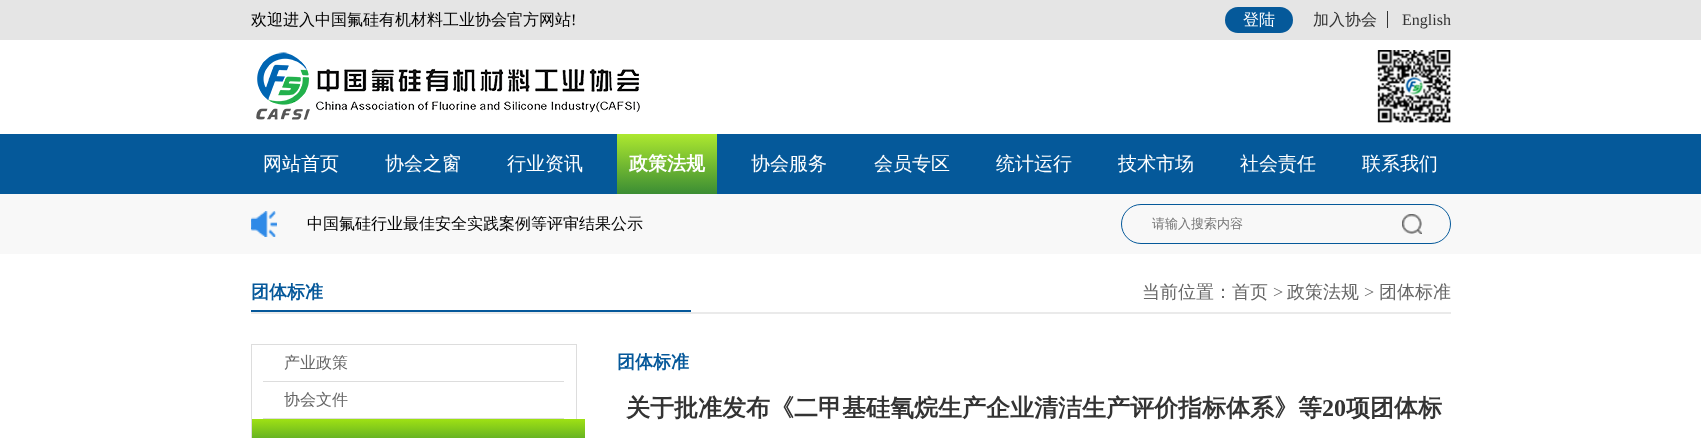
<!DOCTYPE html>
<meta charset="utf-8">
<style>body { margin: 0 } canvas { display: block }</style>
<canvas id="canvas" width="1701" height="438"></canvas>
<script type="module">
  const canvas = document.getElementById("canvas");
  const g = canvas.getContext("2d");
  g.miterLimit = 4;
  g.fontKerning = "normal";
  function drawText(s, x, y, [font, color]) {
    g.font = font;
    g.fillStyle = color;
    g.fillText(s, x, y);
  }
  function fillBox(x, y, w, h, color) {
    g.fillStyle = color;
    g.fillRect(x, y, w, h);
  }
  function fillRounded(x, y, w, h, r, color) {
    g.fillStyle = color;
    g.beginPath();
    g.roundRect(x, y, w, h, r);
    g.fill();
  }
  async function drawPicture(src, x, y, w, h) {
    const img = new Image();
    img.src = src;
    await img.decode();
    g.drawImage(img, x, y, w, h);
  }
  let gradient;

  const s1 = ["500 16px WenQuanYi Zen Hei", "#000000"];
  const s2 = ["16px Liberation Serif", "#000000"];
  const s3 = ["500 16px WenQuanYi Zen Hei", "#FFFFFF"];
  const s4 = ["500 16px WenQuanYi Zen Hei", "#333333"];
  const s5 = ["16px Liberation Serif", "#333333"];
  const s6 = ["500 19px WenQuanYi Zen Hei", "#FFFFFF"];
  const s7 = ["bold 19px WenQuanYi Zen Hei", "#FFFFFF"];
  const s8 = ["500 13px WenQuanYi Zen Hei", "#757575"];
  const s9 = ["bold 18px WenQuanYi Zen Hei", "#05589A"];
  const s10 = ["500 18px WenQuanYi Zen Hei", "#666666"];
  const s11 = ["18px Liberation Serif", "#666666"];
  const s12 = ["500 16px WenQuanYi Zen Hei", "#666666"];
  const s13 = ["bold 24px WenQuanYi Zen Hei", "#333333"];
  const s14 = ["bold 24px Liberation Serif", "#333333"];

  fillBox(0, 0, 1701, 438, "#FFFFFF");
  fillBox(0, 0, 1701, 40, "#E5E5E5");
  drawText("欢迎进入中国氟硅有机材料工业协会官方网站", 251, 25, s1);
  drawText("!", 571, 25, s2);
  fillRounded(1225, 7, 68, 26, 13, "#05599A");
  drawText("登陆", 1243, 25, s3);
  drawText("加入协会", 1313, 25, s4);
  fillBox(1387, 11, 1, 17, "#333333");
  drawText("English", 1402, 25, s5);
  await drawPicture("pic1.png", 256, 52, 384, 68);
  await drawPicture("pic2.png", 1377, 50, 74, 73);
  fillBox(0, 134, 1701, 60, "#05599A");
  drawText("网站首页", 263, 170, s6);
  drawText("协会之窗", 385, 170, s6);
  drawText("行业资讯", 507, 170, s6);
  gradient = g.createLinearGradient(667, 194, 667, 134);
  gradient.addColorStop(0, "#3B8D34");
  gradient.addColorStop(1, "#ADE82F");
  g.fillStyle = gradient;
  g.fillRect(617, 134, 100, 60);
  drawText("政策法规", 629, 170, s7);
  drawText("协会服务", 751, 170, s6);
  drawText("会员专区", 874, 170, s6);
  drawText("统计运行", 996, 170, s6);
  drawText("技术市场", 1118, 170, s6);
  drawText("社会责任", 1240, 170, s6);
  drawText("联系我们", 1362, 170, s6);
  fillBox(0, 194, 1701, 60, "#F8F8F8");
  await drawPicture("pic3.png", 251, 211, 26, 26);
  drawText("中国氟硅行业最佳安全实践案例等评审结果公示", 307, 229, s1);
  g.beginPath();
  g.roundRect(1121.5, 204.5, 329, 39, 19.5);
  g.strokeStyle = "#05599A";
  g.stroke();
  drawText("请输入搜索内容", 1152, 228, s8);
  await drawPicture("pic4.png", 1402, 214, 20, 20);
  fillBox(251, 312, 1200, 2, "#EAEAEA");
  fillBox(251, 310, 440, 2, "#05589A");
  drawText("团体标准", 251, 298, s9);
  drawText("当前位置：首页", 1142, 298, s10);
  drawText(">", 1273, 298, s11);
  drawText("政策法规", 1287, 298, s10);
  drawText(">", 1364, 298, s11);
  drawText("团体标准", 1379, 298, s10);
  g.strokeStyle = "#DDDDDD";
  g.strokeRect(251.5, 344.5, 325, 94);
  drawText("产业政策", 284, 368, s12);
  fillBox(263, 381, 301, 1, "#DDDDDD");
  drawText("协会文件", 284, 405, s12);
  fillBox(263, 418, 301, 1, "#DDDDDD");
  gradient = g.createLinearGradient(419, 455, 419, 419);
  gradient.addColorStop(0, "#358B2E");
  gradient.addColorStop(1, "#9FE114");
  g.fillStyle = gradient;
  g.fillRect(252, 419, 333, 19);
  drawText("团体标准", 617, 368, s9);
  drawText("关于批准发布《二甲基硅氧烷生产企业清洁生产评价指标体系》等", 626, 416, s13);
  drawText("20", 1322, 416, s14);
  drawText("项团体标", 1346, 416, s13);
</script>
